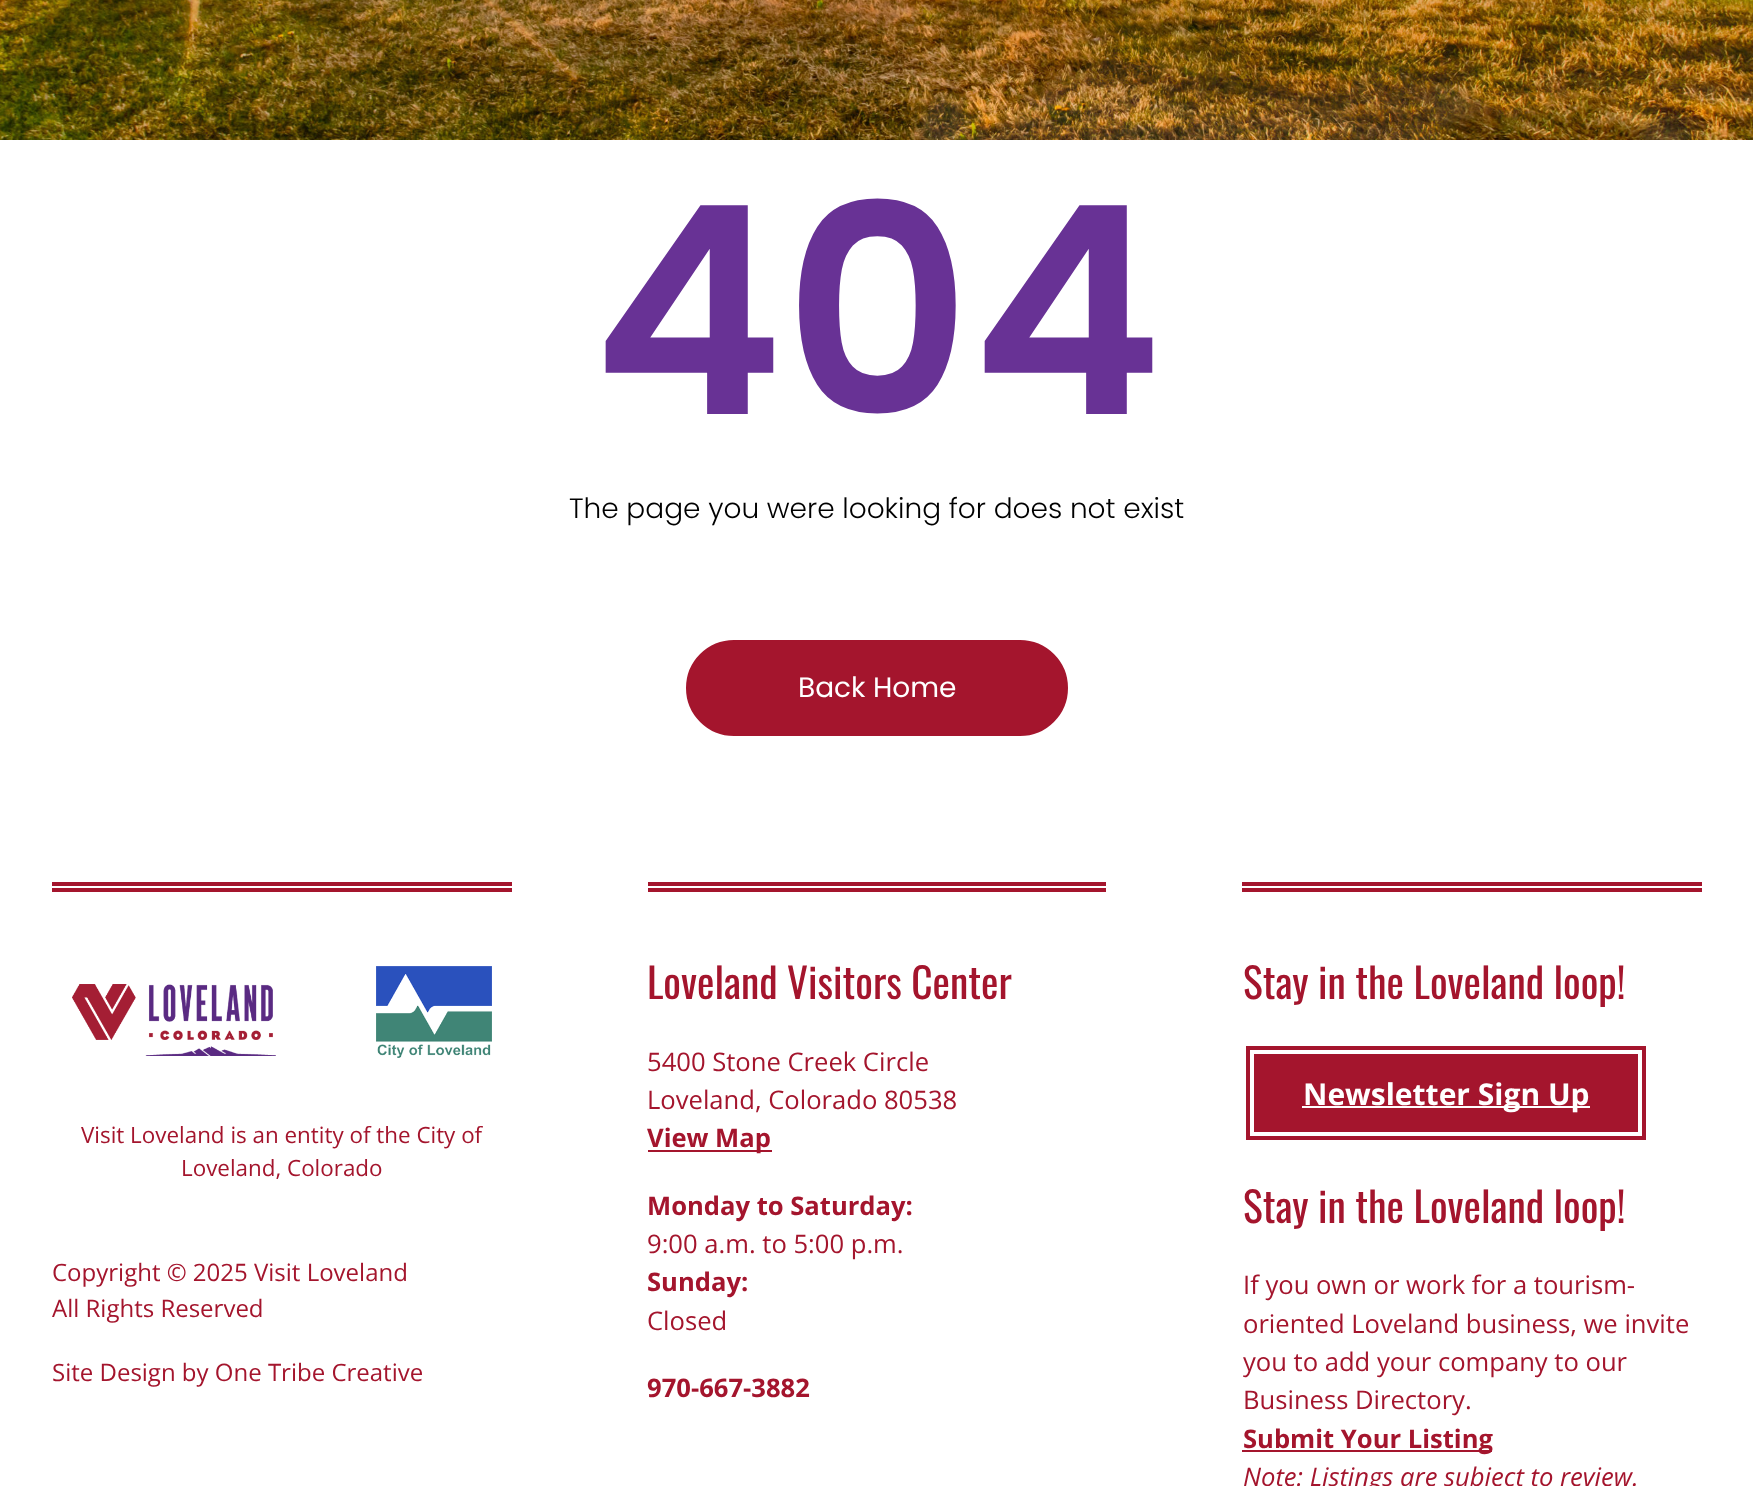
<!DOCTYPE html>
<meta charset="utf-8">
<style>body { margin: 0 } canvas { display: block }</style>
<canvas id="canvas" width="1753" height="1486"></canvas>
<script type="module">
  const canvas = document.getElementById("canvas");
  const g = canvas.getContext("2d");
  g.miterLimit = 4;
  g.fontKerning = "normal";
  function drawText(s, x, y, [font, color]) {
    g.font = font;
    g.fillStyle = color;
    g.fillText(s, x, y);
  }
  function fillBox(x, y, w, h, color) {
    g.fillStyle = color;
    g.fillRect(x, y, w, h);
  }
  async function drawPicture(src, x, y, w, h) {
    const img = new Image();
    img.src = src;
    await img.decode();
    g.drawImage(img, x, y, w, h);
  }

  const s1 = ["600 290px Poppins", "#683295"];
  const s2 = ["300 28px Poppins", "#000000"];
  const s3 = ["28px Poppins", "#FFFFFF"];
  const s4 = ["22.4px Open Sans", "#A4152D"];
  const s5 = ["24px Open Sans", "#A4152D"];
  const s6 = ["41.5px Oswald", "#A4152D"];
  const s7 = ["25.6px Open Sans", "#A4152D"];
  const s8 = ["bold 25.6px Open Sans", "#A4152D"];
  const s9 = ["bold 30px Open Sans", "#FFFFFF"];
  const s10 = ["italic 25.6px Open Sans", "#A4152D"];

  fillBox(0, 0, 1753, 1486, "#FFFFFF");
  await drawPicture("pic1.png", 0, 0, 1753, 140);
  drawText("404", 592, 414, s1);
  drawText("The page you were looking for does not exist", 569, 518, s2);
  g.fillStyle = "#A4152D";
  g.beginPath();
  g.roundRect(687, 641, 380, 94, 47);
  g.fill();
  g.strokeStyle = "#A4152D";
  g.lineWidth = 2;
  g.stroke();
  drawText("Back Home", 798, 697, s3);
  fillBox(52, 882, 460, 4, "#A4152D");
  fillBox(52, 888, 460, 4, "#A4152D");
  await drawPicture("pic2.png", 72, 984, 204, 72);
  await drawPicture("pic3.png", 376, 966, 116, 92);
  drawText("Visit Loveland is an entity of the City of", 81, 1143, s4);
  drawText("Loveland, Colorado", 181, 1176, s4);
  drawText("Copyright © 2025 Visit Loveland", 52, 1281, s5);
  drawText("All Rights Reserved", 52, 1317, s5);
  drawText("Site Design by One Tribe Creative", 52, 1381, s5);
  fillBox(648, 882, 458, 4, "#A4152D");
  fillBox(648, 888, 458, 4, "#A4152D");
  drawText("Loveland Visitors Center", 647, 999, s6);
  drawText("5400 Stone Creek Circle", 647, 1071, s7);
  drawText("Loveland, Colorado 80538", 647, 1109, s7);
  fillBox(648, 1150, 124, 2, "#A4152D");
  drawText("View Map", 647, 1147, s8);
  drawText("Monday to Saturday:", 647, 1215, s8);
  drawText("9:00 a.m. to 5:00 p.m.", 647, 1253, s7);
  drawText("Sunday:", 647, 1291, s8);
  drawText("Closed", 647, 1330, s7);
  drawText("970-667-3882", 647, 1397, s8);
  fillBox(1242, 882, 460, 4, "#A4152D");
  fillBox(1242, 888, 460, 4, "#A4152D");
  drawText("Stay in the Loveland loop!", 1243, 999, s6);
  fillBox(1246, 1046, 400, 94, "#A4152D");
  g.strokeStyle = "#FFFFFF";
  g.lineWidth = 4;
  g.strokeRect(1252, 1052, 388, 82);
  fillBox(1302, 1106, 288, 2, "#FFFFFF");
  drawText("Newsletter Sign Up", 1303, 1105, s9);
  drawText("Stay in the Loveland loop!", 1243, 1223, s6);
  drawText("If you own or work for a tourism-", 1243, 1294, s7);
  drawText("oriented Loveland business, we invite", 1243, 1333, s7);
  drawText("you to add your company to our", 1243, 1371, s7);
  drawText("Business Directory.", 1243, 1409, s7);
  fillBox(1242, 1450, 250, 2, "#A4152D");
  drawText("Submit Your Listing", 1243, 1448, s8);
  drawText("Note: Listings are subject to review.", 1243, 1486, s10);
</script>
